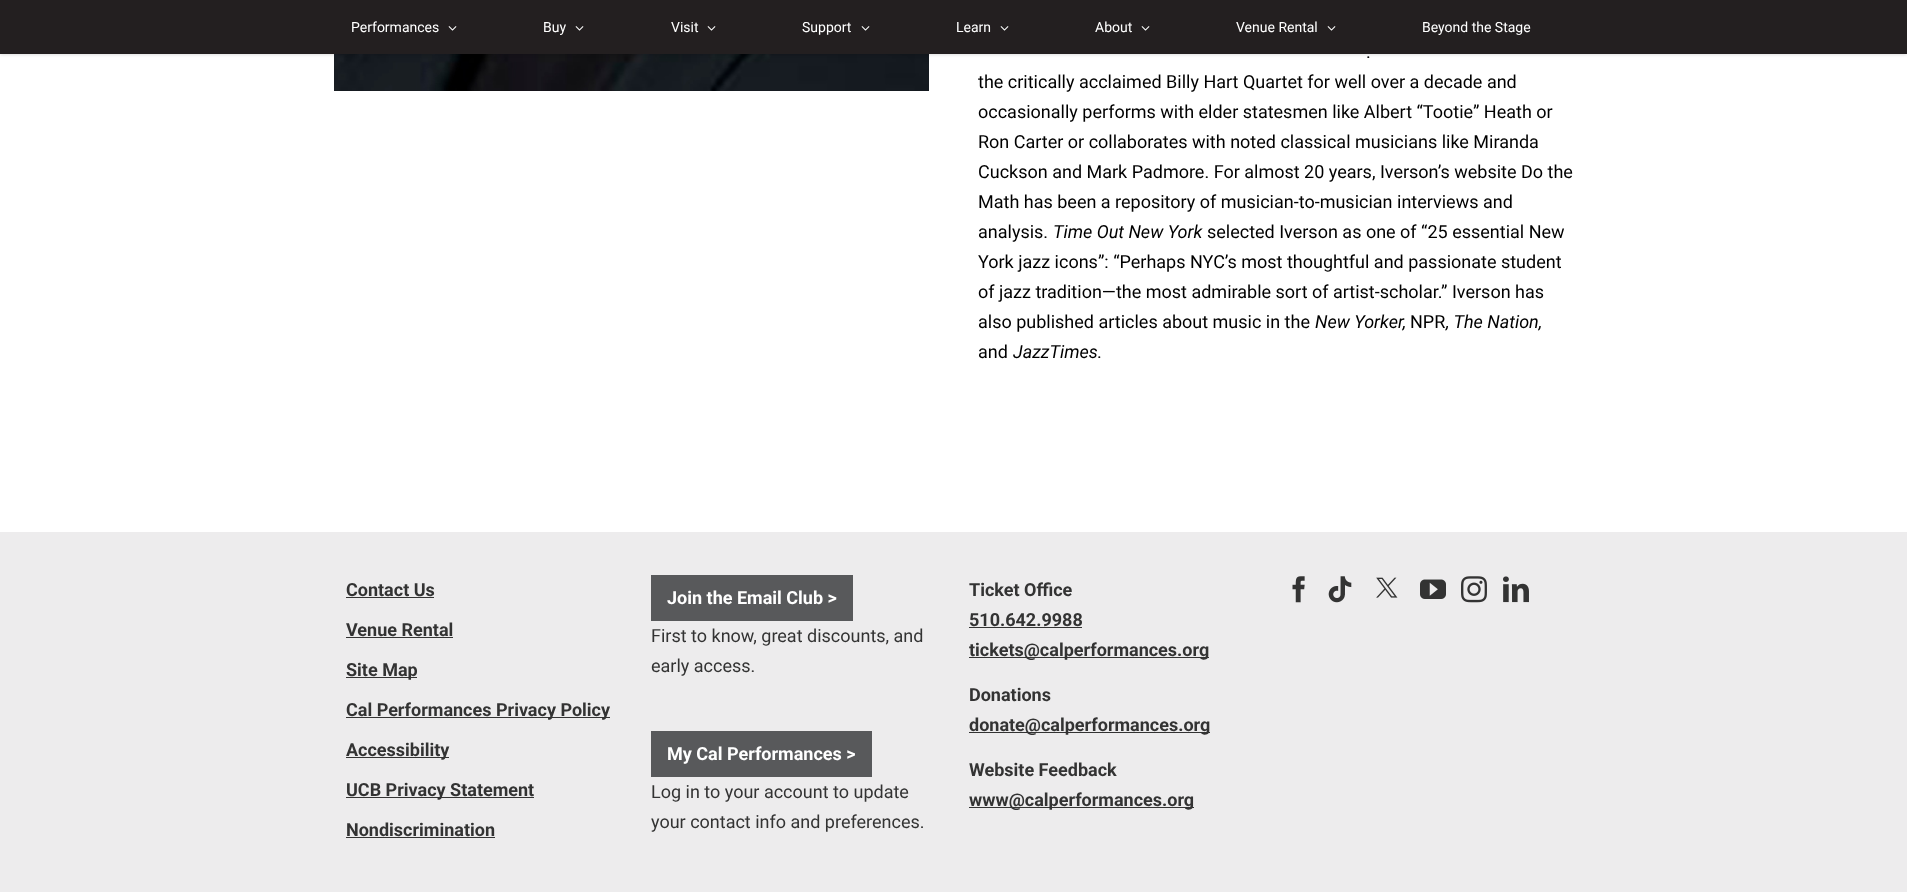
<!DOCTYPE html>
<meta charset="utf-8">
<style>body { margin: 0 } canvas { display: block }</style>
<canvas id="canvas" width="1907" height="892"></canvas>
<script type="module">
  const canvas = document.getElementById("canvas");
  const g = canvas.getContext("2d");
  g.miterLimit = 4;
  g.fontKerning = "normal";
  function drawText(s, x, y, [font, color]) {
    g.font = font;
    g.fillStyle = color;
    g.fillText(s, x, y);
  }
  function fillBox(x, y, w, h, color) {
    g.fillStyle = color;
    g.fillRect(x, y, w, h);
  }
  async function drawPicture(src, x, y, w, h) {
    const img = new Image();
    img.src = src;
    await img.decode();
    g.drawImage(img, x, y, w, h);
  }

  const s1 = ["14px Roboto", "#FFFFFF"];
  const s2 = ["18px Roboto", "#000000"];
  const s3 = ["italic 18px Roboto", "#000000"];
  const s4 = ["bold 18px Roboto", "#333333"];
  const s5 = ["bold 18px Roboto", "#FFFFFF"];
  const s6 = ["18px Roboto", "#333333"];

  fillBox(0, 0, 1907, 892, "#FFFFFF");
  await drawPicture("pic2.png", 334, 54, 595, 37);
  g.fillStyle = "rgba(0, 0, 0, 0.12)";
  g.filter = "blur(1.5px)";
  g.beginPath();
  g.rect(0, 1, 1907, 54);
  g.fill();
  g.filter = "none";
  fillBox(0, 0, 1907, 54, "#231F20");
  drawText("Performances", 351, 32, s1);
  await drawPicture("pic1.png", 448, 26, 9, 5);
  drawText("Buy", 543, 32, s1);
  await drawPicture("pic1.png", 575, 26, 9, 5);
  drawText("Visit", 671, 32, s1);
  await drawPicture("pic1.png", 707, 26, 9, 5);
  drawText("Support", 802, 32, s1);
  await drawPicture("pic1.png", 861, 26, 9, 5);
  drawText("Learn", 956, 32, s1);
  await drawPicture("pic1.png", 1000, 26, 9, 5);
  drawText("About", 1095, 32, s1);
  await drawPicture("pic1.png", 1141, 26, 9, 5);
  drawText("Venue Rental", 1236, 32, s1);
  await drawPicture("pic1.png", 1327, 26, 9, 5);
  drawText("Beyond the Stage", 1422, 32, s1);
  drawText(".", 1366, 58, s2);
  drawText("the critically acclaimed Billy Hart Quartet for well over a decade and", 978, 88, s2);
  drawText("occasionally performs with elder statesmen like Albert “Tootie” Heath or", 978, 118, s2);
  drawText("Ron Carter or collaborates with noted classical musicians like Miranda", 978, 148, s2);
  drawText("Cuckson and Mark Padmore. For almost 20 years, Iverson’s website Do the", 978, 178, s2);
  drawText("Math has been a repository of musician-to-musician interviews and", 978, 208, s2);
  drawText("analysis.", 978, 238, s2);
  drawText("Time Out New York", 1053, 238, s3);
  drawText("selected Iverson as one of “25 essential New", 1207, 238, s2);
  drawText("York jazz icons”: “Perhaps NYC’s most thoughtful and passionate student", 978, 268, s2);
  drawText("of jazz tradition—the most admirable sort of artist-scholar.” Iverson has", 978, 298, s2);
  drawText("also published articles about music in the", 978, 328, s2);
  drawText("New Yorker,", 1315, 328, s3);
  drawText("NPR", 1410, 328, s2);
  drawText(", The Nation,", 1446, 328, s3);
  drawText("and", 978, 358, s2);
  drawText("JazzTimes", 1013, 358, s3);
  drawText(".", 1097, 358, s2);
  fillBox(0, 532, 1907, 360, "#EDECED");
  drawText("Contact Us", 346, 596, s4);
  fillBox(346, 597, 88, 1, "#333333");
  drawText("Venue Rental", 346, 636, s4);
  fillBox(346, 637, 107, 1, "#333333");
  fillBox(346, 677, 71, 1, "#333333");
  drawText("Site Map", 346, 676, s4);
  fillBox(346, 717, 264, 1, "#333333");
  drawText("Cal Performances Privacy Policy", 346, 716, s4);
  fillBox(346, 757, 103, 1, "#333333");
  drawText("Accessibility", 346, 756, s4);
  fillBox(346, 797, 188, 1, "#333333");
  drawText("UCB Privacy Statement", 346, 796, s4);
  drawText("Nondiscrimination", 346, 836, s4);
  fillBox(346, 837, 149, 1, "#333333");
  fillBox(651, 575, 202, 46, "#58595B");
  drawText("Join the Email Club >", 667, 604, s5);
  drawText("First to know, great discounts, and", 651, 642, s6);
  drawText("early access.", 651, 672, s6);
  fillBox(651, 731, 221, 46, "#58595B");
  drawText("My Cal Performances >", 667, 760, s5);
  drawText("Log in to your account to update", 651, 798, s6);
  drawText("your contact info and preferences.", 651, 828, s6);
  drawText("Ticket Office", 969, 596, s4);
  drawText("510.642.9988", 969, 626, s4);
  fillBox(969, 627, 113, 1, "#333333");
  fillBox(969, 657, 240, 1, "#333333");
  drawText("tickets@calperformances.org", 969, 656, s4);
  drawText("Donations", 969, 701, s4);
  fillBox(969, 732, 241, 1, "#333333");
  drawText("donate@calperformances.org", 969, 731, s4);
  drawText("Website Feedback", 969, 776, s4);
  fillBox(969, 807, 225, 1, "#333333");
  drawText("www@calperformances.org", 969, 806, s4);
  await drawPicture("pic3.png", 1292, 576, 13, 27);
  await drawPicture("pic4.png", 1328, 576, 24, 27);
  await drawPicture("pic5.png", 1376, 577, 22, 21);
  await drawPicture("pic6.png", 1420, 579, 26, 20);
  await drawPicture("pic7.png", 1461, 576, 26, 27);
  await drawPicture("pic8.png", 1503, 576, 26, 27);
</script>
